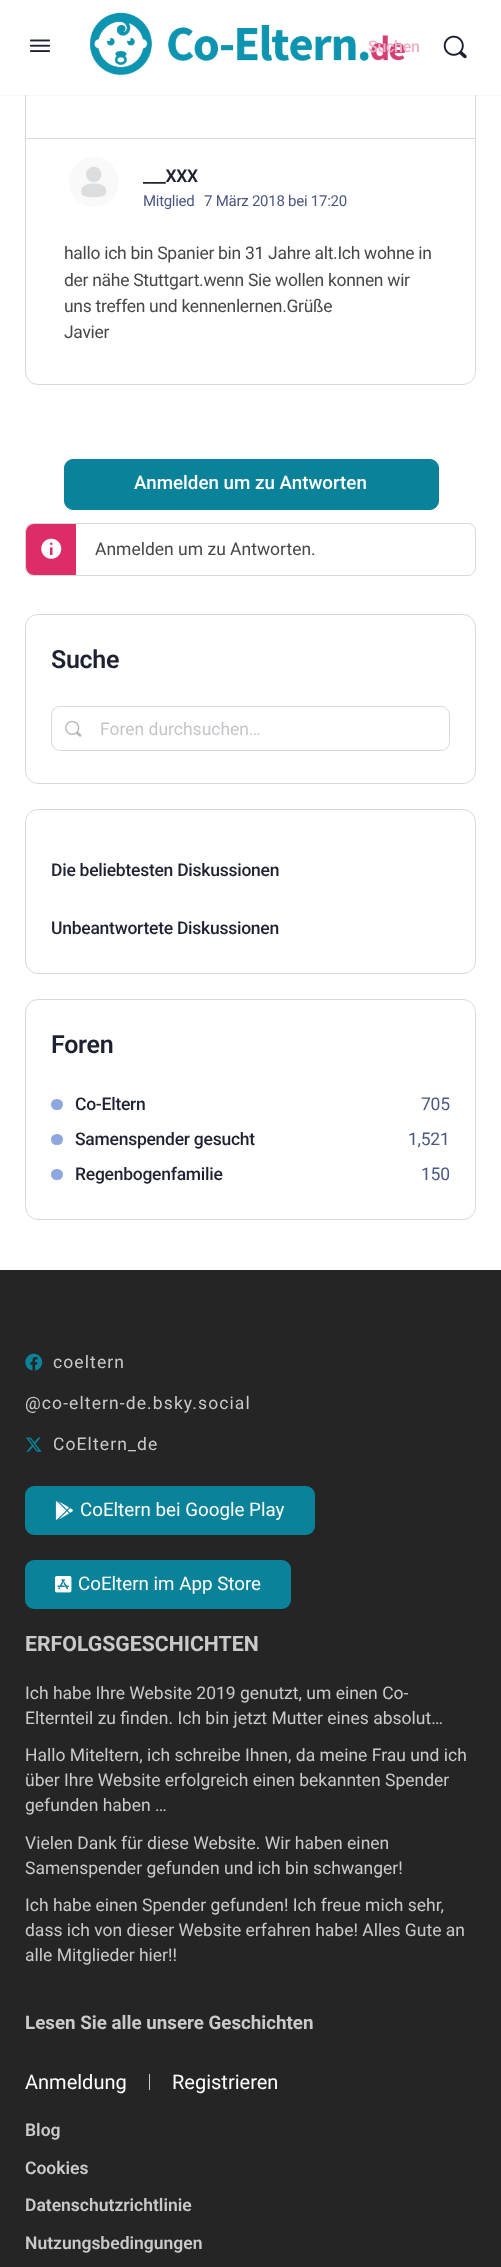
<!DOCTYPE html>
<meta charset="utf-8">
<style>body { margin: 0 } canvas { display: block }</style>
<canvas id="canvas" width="501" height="2267"></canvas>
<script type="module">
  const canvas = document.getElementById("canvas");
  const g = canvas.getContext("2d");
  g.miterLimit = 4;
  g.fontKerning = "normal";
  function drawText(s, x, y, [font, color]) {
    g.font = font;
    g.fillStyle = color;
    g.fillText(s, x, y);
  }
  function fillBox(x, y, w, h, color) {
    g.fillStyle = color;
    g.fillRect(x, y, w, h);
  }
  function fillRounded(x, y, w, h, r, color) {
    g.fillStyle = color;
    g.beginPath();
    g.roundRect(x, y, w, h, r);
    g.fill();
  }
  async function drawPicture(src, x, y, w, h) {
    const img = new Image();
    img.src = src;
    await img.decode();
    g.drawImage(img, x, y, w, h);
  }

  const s1 = ["500 16px Roboto", "#EEB2C7"];
  const s2 = ["600 17.5px Roboto", "#1E2132"];
  const s3 = ["15px Roboto", "#4B5784"];
  const s4 = ["17.5px Roboto", "#474747"];
  const s5 = ["500 18.75px Roboto", "#FFFFFF"];
  const s6 = ["600 25px Roboto", "#1E2132"];
  const s7 = ["17.5px Roboto", "#C3C6C9"];
  const s8 = ["500 17.5px Roboto", "#1E2132"];
  const s9 = ["17.5px Roboto", "#4B5784"];
  const s10 = ["17.5px Roboto", "#CACACA"];
  const s11 = ["18.75px Roboto", "#FFFFFF"];
  const s12 = ["bold 21.25px Roboto", "#CACACA"];
  const s13 = ["bold 18.75px Roboto", "#CACACA"];
  const s14 = ["20px Roboto", "#FFFFFF"];
  const s15 = ["600 17.5px Roboto", "#CACACA"];

  fillBox(0, 0, 501, 2267, "#FFFFFF");
  fillBox(475, 95, 1, 44, "#D6D9DD");
  fillBox(25, 95, 1, 44, "#D6D9DD");
  fillBox(0, 95, 501, 1, "rgba(139, 141, 157, 0.05)");
  await drawPicture("pic1.png", 30, 39, 20, 13);
  await drawPicture("pic2.png", 90, 12, 316, 64);
  g.letterSpacing = "-0.3px";
  drawText("Suchen", 368, 52, s1);
  await drawPicture("pic3.png", 443, 35, 24, 24);
  g.fillStyle = "#FFFFFF";
  g.beginPath();
  g.roundRect(25.5, 138.5, 450, 246, [0, 0, 12.5, 12.5]);
  g.fill();
  g.strokeStyle = "#D6D9DD";
  g.stroke();
  await drawPicture("pic4.png", 69, 157, 49, 50);
  drawText("___XXX", 143, 182, s2);
  drawText("Mitglied", 143, 206, s3);
  g.letterSpacing = "-0.25px";
  drawText("7 März 2018 bei 17:20", 204, 206, s3);
  g.letterSpacing = "-0.3px";
  drawText("hallo ich bin Spanier bin 31 Jahre alt.Ich wohne in", 64, 259, s4);
  drawText("der nähe Stuttgart.wenn Sie wollen konnen wir", 64, 286, s4);
  drawText("uns treffen und kennenlernen.Grüße", 64, 312, s4);
  drawText("Javier", 64, 338, s4);
  g.fillStyle = "#0A8299";
  g.beginPath();
  g.roundRect(64.5, 459.5, 374, 50, 8.5);
  g.fill();
  g.strokeStyle = "#0A8299";
  g.stroke();
  g.letterSpacing = "0px";
  drawText("Anmelden um zu Antworten", 134, 489, s5);
  g.beginPath();
  g.roundRect(25.5, 523.5, 450, 52, 7.5);
  g.strokeStyle = "#D6D9DD";
  g.stroke();
  g.fillStyle = "#DE2C68";
  g.beginPath();
  g.roundRect(26, 524, 50, 51, [8, 0, 0, 8]);
  g.fill();
  await drawPicture("pic5.png", 41, 538, 21, 21);
  drawText("Anmelden um zu Antworten.", 95, 555, s4);
  g.beginPath();
  g.roundRect(25.5, 614.5, 450, 169, 12.5);
  g.stroke();
  g.letterSpacing = "-0.3px";
  drawText("Suche", 51, 668, s6);
  g.beginPath();
  g.roundRect(51.5, 706.5, 398, 44, 8.5);
  g.stroke();
  await drawPicture("pic6.png", 65, 720, 17, 17);
  g.letterSpacing = "0px";
  drawText("Foren durchsuchen…", 100, 735, s7);
  g.beginPath();
  g.roundRect(25.5, 809.5, 450, 164, 12.5);
  g.stroke();
  g.letterSpacing = "-0.25px";
  drawText("Die beliebtesten Diskussionen", 51, 876, s8);
  drawText("Unbeantwortete Diskussionen", 51, 934, s8);
  g.beginPath();
  g.roundRect(25.5, 999.5, 450, 220, 12.5);
  g.stroke();
  g.letterSpacing = "-0.3px";
  drawText("Foren", 51, 1053, s6);
  fillRounded(51, 1099, 12, 11, 5.5, "#8FA7DF");
  g.letterSpacing = "-0.25px";
  drawText("Co-Eltern", 75, 1110, s8);
  drawText("705", 421, 1110, s9);
  fillRounded(51, 1134, 12, 11, 5.5, "#8FA7DF");
  drawText("Samenspender gesucht", 75, 1145, s8);
  drawText("1,521", 408, 1145, s9);
  fillRounded(51, 1169, 12, 11, 5.5, "#8FA7DF");
  drawText("Regenbogenfamilie", 75, 1180, s8);
  drawText("150", 421, 1180, s9);
  fillBox(0, 1270, 501, 997, "#252525");
  await drawPicture("pic7.png", 25, 1353, 18, 18);
  g.letterSpacing = "1.1px";
  drawText("coeltern", 53, 1368, s10);
  drawText("@co-eltern-de.bsky.social", 25, 1409, s10);
  await drawPicture("pic8.png", 26, 1437, 16, 15);
  drawText("CoEltern_de", 53, 1450, s10);
  fillRounded(25, 1486, 290, 49, 9, "#0A8299");
  await drawPicture("pic9.png", 55, 1501, 18, 19);
  g.letterSpacing = "0px";
  drawText("CoEltern bei Google Play", 80, 1516, s11);
  fillRounded(25, 1560, 266, 49, 9, "#0A8299");
  await drawPicture("pic10.png", 55, 1576, 17, 17);
  drawText("CoEltern im App Store", 78, 1590, s11);
  drawText("ERFOLGSGESCHICHTEN", 25, 1651, s12);
  drawText("Ich habe Ihre Website 2019 genutzt, um einen Co-", 25, 1699, s10);
  drawText("Elternteil zu finden. Ich bin jetzt Mutter eines absolut…", 25, 1724, s10);
  drawText("Hallo Miteltern, ich schreibe Ihnen, da meine Frau und ich", 25, 1761, s10);
  drawText("über Ihre Website erfolgreich einen bekannten Spender", 25, 1786, s10);
  drawText("gefunden haben …", 25, 1811, s10);
  drawText("Vielen Dank für diese Website. Wir haben einen", 25, 1849, s10);
  drawText("Samenspender gefunden und ich bin schwanger!", 25, 1874, s10);
  drawText("Ich habe einen Spender gefunden! Ich freue mich sehr,", 25, 1911, s10);
  drawText("dass ich von dieser Website erfahren habe! Alles Gute an", 25, 1936, s10);
  drawText("alle Mitglieder hier!!", 25, 1961, s10);
  drawText("Lesen Sie alle unsere Geschichten", 25, 2029, s13);
  drawText("Anmeldung", 25, 2089, s14);
  fillBox(149, 2074, 1, 16, "#CACACA");
  drawText("Registrieren", 172, 2089, s14);
  drawText("Blog", 25, 2136, s15);
  drawText("Cookies", 25, 2174, s15);
  drawText("Datenschutzrichtlinie", 25, 2211, s15);
  drawText("Nutzungsbedingungen", 25, 2249, s15);
</script>
